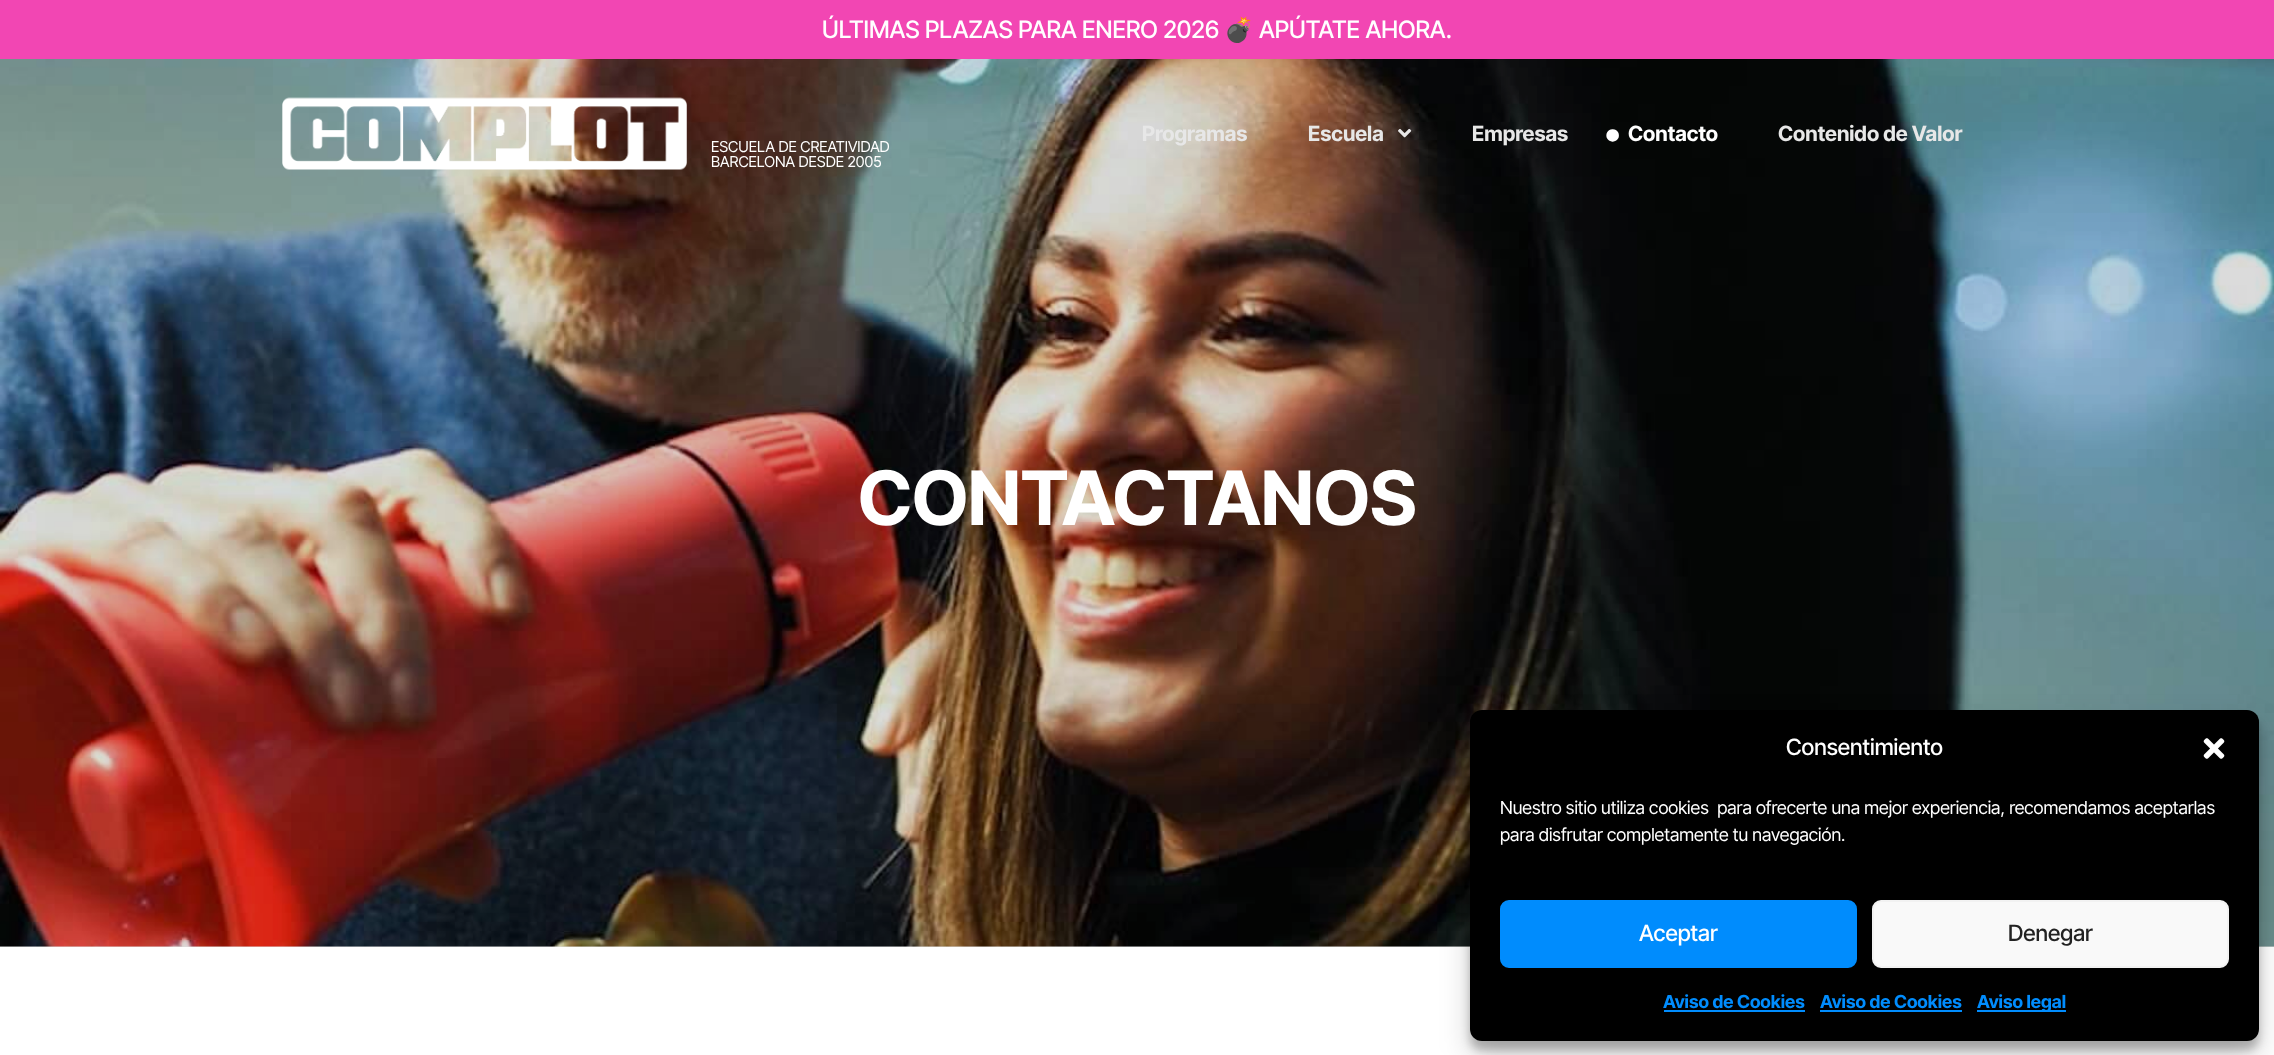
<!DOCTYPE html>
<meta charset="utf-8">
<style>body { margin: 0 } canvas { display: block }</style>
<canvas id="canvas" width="2274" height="1055"></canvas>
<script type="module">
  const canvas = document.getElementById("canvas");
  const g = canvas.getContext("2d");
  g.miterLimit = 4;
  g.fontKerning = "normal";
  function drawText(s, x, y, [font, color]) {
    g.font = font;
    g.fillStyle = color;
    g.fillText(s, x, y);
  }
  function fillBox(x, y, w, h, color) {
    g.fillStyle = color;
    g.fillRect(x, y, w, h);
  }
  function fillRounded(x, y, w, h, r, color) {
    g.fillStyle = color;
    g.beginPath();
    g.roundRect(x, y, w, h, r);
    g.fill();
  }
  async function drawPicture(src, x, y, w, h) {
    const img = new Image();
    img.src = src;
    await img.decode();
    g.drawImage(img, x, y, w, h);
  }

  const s1 = ["500 24px Inter Tight", "#FFFFFF"];
  const s2 = ["24px Noto Color Emoji", "#FFFFFF"];
  const s3 = ["bold 21px Inter Tight", "#E7E7E7"];
  const s4 = ["bold 40px Inter Tight", "#FFFFFF"];
  const s5 = ["bold 21px Inter Tight", "#FFFFFF"];
  const s6 = ["15px Inter Tight", "#FFFFFF"];
  const s7 = ["bold 75px Inter Tight", "#FFFFFF"];
  const s8 = ["500 22.5px Inter Tight", "#FFFFFF"];
  const s9 = ["18px Inter Tight", "#FFFFFF"];
  const s10 = ["500 22.5px Inter Tight", "#222222"];
  const s11 = ["bold 18px Inter Tight", "#008CFD"];

  fillBox(0, 0, 2274, 1055, "#FFFFFF");
  fillBox(0, 946, 2274, 1, "#DBDBDB");
  fillBox(0, 0, 2274, 59, "#F246B3");
  drawText("ÚLTIMAS PLAZAS PARA ENERO 2026", 822, 38, s1);
  drawText("💣", 1224, 38, s2);
  drawText("APÚTATE AHORA.", 1259, 38, s1);
  await drawPicture("pic3.png", 0, 59, 2274, 888);
  drawText("Programas", 1142, 141, s3);
  drawText("Escuela", 1308, 141, s3);
  await drawPicture("pic1.png", 1398, 128, 14, 10);
  drawText("Empresas", 1472, 141, s3);
  drawText("•", 1604, 147, s4);
  drawText("Contacto", 1628, 141, s5);
  drawText("Contenido de Valor", 1778, 141, s3);
  await drawPicture("pic2.png", 282, 97, 405, 73);
  drawText("ESCUELA DE CREATIVIDAD", 711, 152, s6);
  drawText("BARCELONA DESDE 2005", 711, 167, s6);
  drawText("CONTACTANOS", 858, 525, s7);
  g.fillStyle = "rgba(0, 0, 0, 0.23)";
  g.filter = "blur(4.5px)";
  g.beginPath();
  g.roundRect(1470, 719, 789, 331, 12);
  g.fill();
  g.filter = "none";
  g.fillStyle = "rgba(0, 0, 0, 0.19)";
  g.filter = "blur(15px)";
  g.beginPath();
  g.roundRect(1470, 725, 789, 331, 12);
  g.fill();
  g.filter = "none";
  fillRounded(1470, 710, 789, 331, 12, "#000000");
  drawText("Consentimiento", 1786, 755, s8);
  await drawPicture("pic4.png", 2203, 738, 22, 21);
  drawText("Nuestro sitio utiliza cookies  para ofrecerte una mejor experiencia, recomendamos aceptarlas", 1500, 814, s9);
  drawText("para disfrutar completamente tu navegación.", 1500, 841, s9);
  g.fillStyle = "#008CFD";
  g.beginPath();
  g.roundRect(1501, 901, 355, 66, 8);
  g.fill();
  g.strokeStyle = "#008CFD";
  g.lineWidth = 2;
  g.stroke();
  drawText("Aceptar", 1639, 941, s8);
  g.fillStyle = "#F9F9F9";
  g.beginPath();
  g.roundRect(1873, 901, 355, 66, 8);
  g.fill();
  g.strokeStyle = "#F2F2F2";
  g.stroke();
  drawText("Denegar", 2008, 941, s10);
  drawText("Aviso de Cookies", 1663, 1008, s11);
  fillBox(1664, 1010, 141, 2, "#008CFD");
  drawText("Aviso de Cookies", 1820, 1008, s11);
  fillBox(1820, 1010, 142, 2, "#008CFD");
  fillBox(1977, 1010, 89, 2, "#008CFD");
  drawText("Aviso legal", 1977, 1008, s11);
</script>
